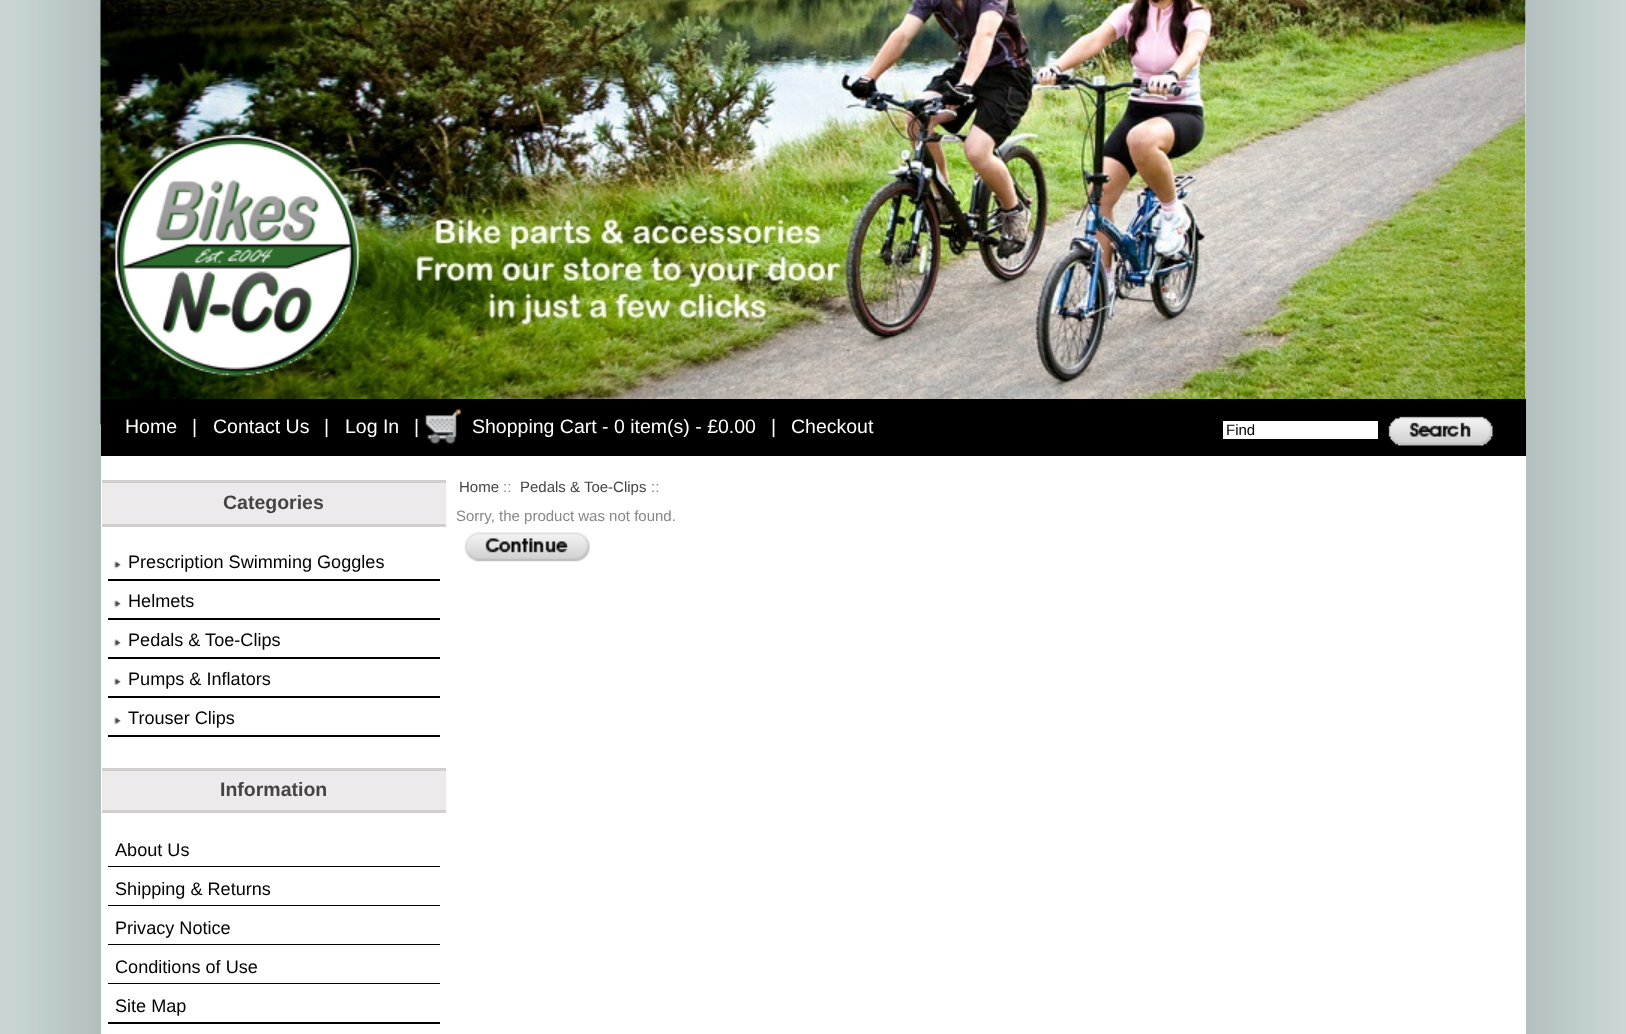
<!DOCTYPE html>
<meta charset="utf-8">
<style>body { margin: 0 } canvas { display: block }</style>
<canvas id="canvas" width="1626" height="1034"></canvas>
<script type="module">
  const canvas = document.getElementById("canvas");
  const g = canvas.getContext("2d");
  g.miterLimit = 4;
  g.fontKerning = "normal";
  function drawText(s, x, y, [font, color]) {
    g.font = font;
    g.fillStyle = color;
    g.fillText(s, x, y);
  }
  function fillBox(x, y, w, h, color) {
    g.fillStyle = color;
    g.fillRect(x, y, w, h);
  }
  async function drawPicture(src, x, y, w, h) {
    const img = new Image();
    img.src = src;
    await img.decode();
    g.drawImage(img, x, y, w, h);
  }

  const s1 = ["19.5px Liberation Sans", "#FFFFFD"];
  const s2 = ["15px Liberation Sans", "#000000"];
  const s3 = ["bold 19.5px Liberation Sans", "#444444"];
  const s4 = ["18.1px Liberation Sans", "#000000"];
  const s5 = ["15px Liberation Sans", "#444444"];
  const s6 = ["15px Liberation Sans", "#888787"];

  fillBox(0, 0, 1626, 1034, "#FFFFFF");
  await drawPicture("pic1.png", 0, 0, 1626, 1034);
  fillBox(1525, 0, 1, 399, "#FFFFFF");
  await drawPicture("pic2.png", 100, 0, 1426, 425);
  await drawPicture("pic3.png", 115, 134, 245, 243);
  fillBox(101, 399, 1425, 57, "#000000");
  drawText("Home", 125, 433, s1);
  drawText("|", 192, 433, s1);
  drawText("Contact Us", 213, 433, s1);
  drawText("|", 324, 433, s1);
  drawText("Log In", 345, 433, s1);
  drawText("|", 414, 433, s1);
  await drawPicture("pic4.png", 424, 409, 38, 36);
  drawText("Shopping Cart - 0 item(s) - £0.00", 472, 433, s1);
  drawText("|", 771, 433, s1);
  drawText("Checkout", 791, 433, s1);
  fillBox(1223, 421, 155, 18, "#FFFFFF");
  drawText("Find", 1226, 435, s2);
  await drawPicture("pic5.png", 1388, 416, 105, 30);
  fillBox(101, 456, 1425, 578, "#FFFFFF");
  fillBox(102, 483, 344, 41, "#ECEAEA");
  fillBox(102, 480, 344, 3, "#D2CECE");
  fillBox(102, 524, 344, 3, "#D2CECE");
  drawText("Categories", 223, 509, s3);
  fillBox(108, 579, 332, 2, "#000000");
  await drawPicture("pic6.png", 114, 561, 7, 8);
  drawText("Prescription Swimming Goggles", 128, 568, s4);
  fillBox(108, 618, 332, 2, "#000000");
  await drawPicture("pic6.png", 114, 600, 7, 8);
  drawText("Helmets", 128, 607, s4);
  fillBox(108, 657, 332, 2, "#000000");
  await drawPicture("pic6.png", 114, 639, 7, 8);
  drawText("Pedals & Toe-Clips", 128, 646, s4);
  fillBox(108, 696, 332, 2, "#000000");
  await drawPicture("pic6.png", 114, 678, 7, 8);
  drawText("Pumps & Inflators", 128, 685, s4);
  fillBox(108, 735, 332, 2, "#000000");
  await drawPicture("pic6.png", 114, 717, 7, 8);
  drawText("Trouser Clips", 128, 724, s4);
  fillBox(102, 771, 344, 39, "#ECEAEA");
  fillBox(102, 768, 344, 3, "#D2CECE");
  fillBox(102, 810, 344, 3, "#D2CECE");
  drawText("Information", 220, 796, s3);
  fillBox(108, 866, 332, 1, "#000000");
  drawText("About Us", 115, 856, s4);
  fillBox(108, 905, 332, 1, "#000000");
  drawText("Shipping & Returns", 115, 895, s4);
  fillBox(108, 944, 332, 1, "#000000");
  drawText("Privacy Notice", 115, 934, s4);
  fillBox(108, 983, 332, 1, "#000000");
  drawText("Conditions of Use", 115, 973, s4);
  fillBox(108, 1022, 332, 2, "#000000");
  drawText("Site Map", 115, 1012, s4);
  drawText("Home", 459, 492, s5);
  drawText("::", 503, 492, s6);
  drawText("Pedals & Toe-Clips", 520, 492, s5);
  drawText("::", 651, 492, s6);
  drawText("Sorry, the product was not found.", 456, 521, s6);
  await drawPicture("pic7.png", 464, 532, 126, 30);
</script>
